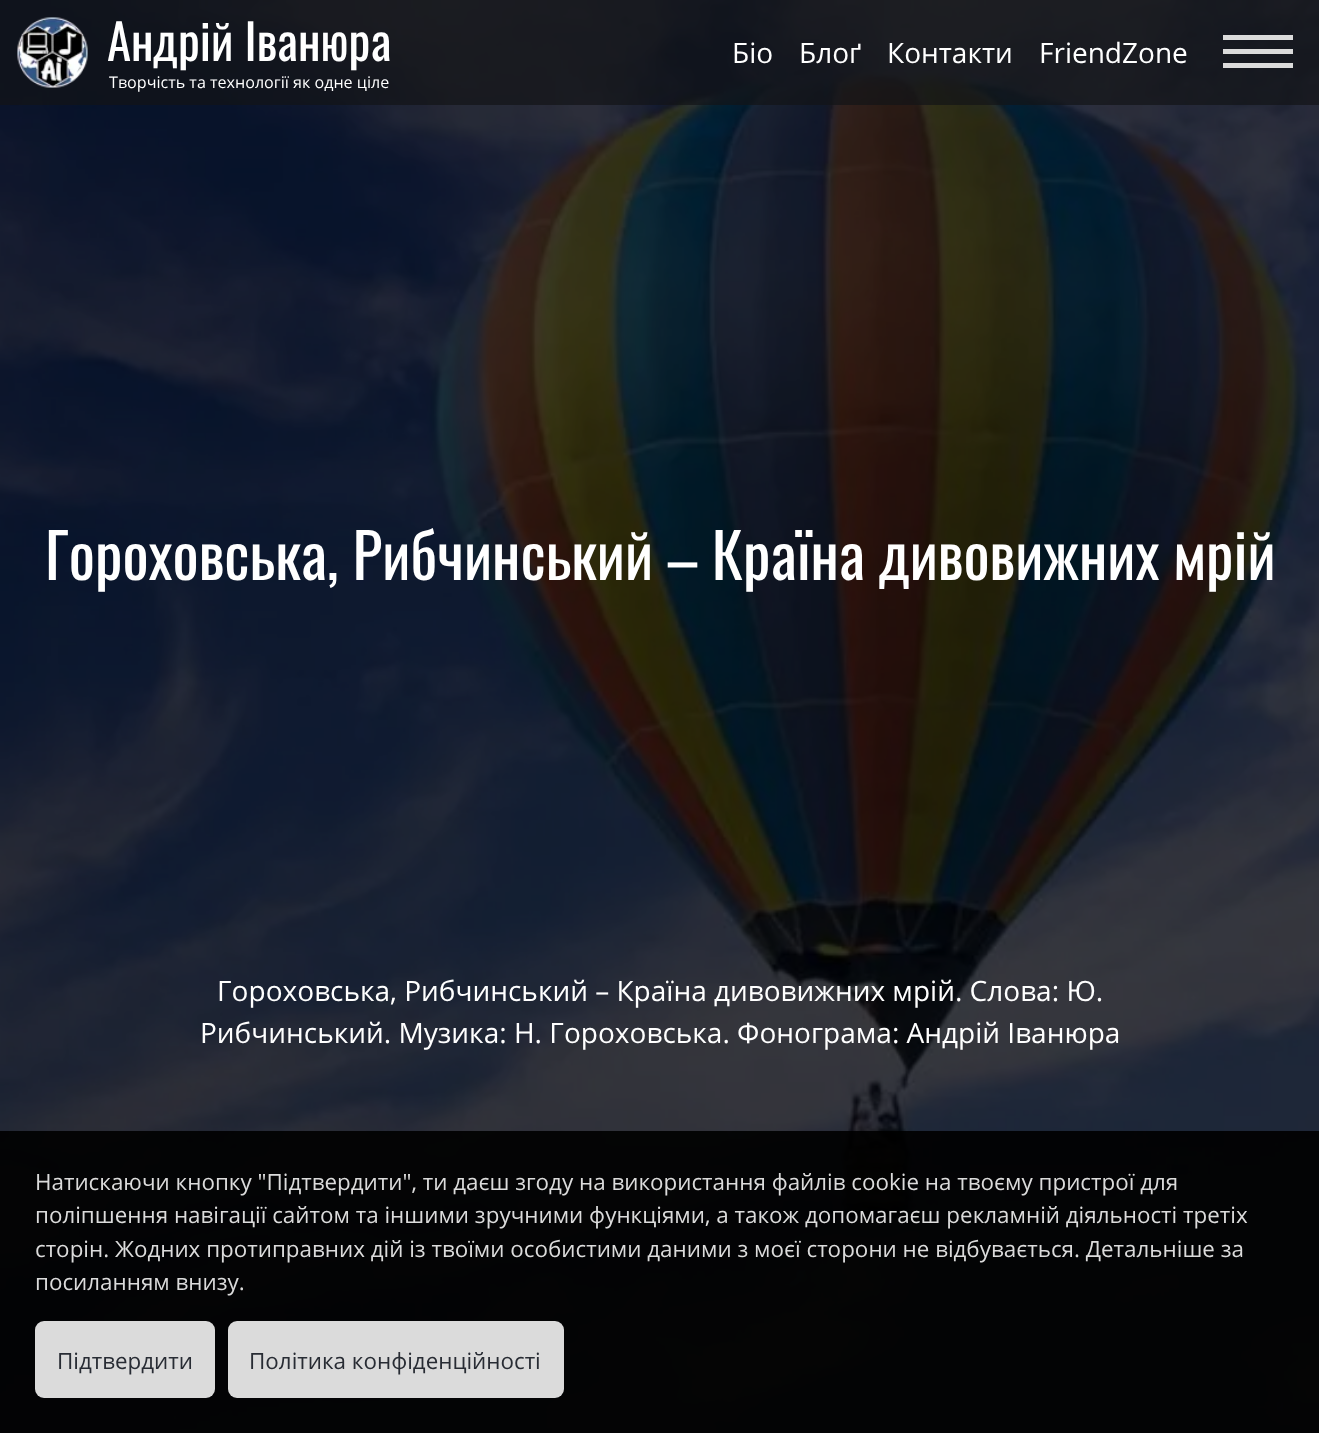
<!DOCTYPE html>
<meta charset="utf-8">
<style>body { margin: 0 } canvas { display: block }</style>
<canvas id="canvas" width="1319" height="1433"></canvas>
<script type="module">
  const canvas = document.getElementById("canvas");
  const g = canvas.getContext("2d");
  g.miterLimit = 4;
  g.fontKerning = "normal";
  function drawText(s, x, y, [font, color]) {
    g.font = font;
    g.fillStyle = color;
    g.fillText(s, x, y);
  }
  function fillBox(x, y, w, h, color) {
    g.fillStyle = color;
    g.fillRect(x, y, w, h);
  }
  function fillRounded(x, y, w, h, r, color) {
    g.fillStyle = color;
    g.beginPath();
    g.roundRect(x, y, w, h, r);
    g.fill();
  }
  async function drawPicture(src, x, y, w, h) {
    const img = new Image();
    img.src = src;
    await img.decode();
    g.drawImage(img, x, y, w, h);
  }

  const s1 = ["49px Oswald", "#FFFFFF"];
  const s2 = ["16.1px Open Sans", "#FFFFFF"];
  const s3 = ["28px Open Sans", "#FFFFFF"];
  const s4 = ["61.6px Oswald", "#FFFFFF"];
  const s5 = ["22.4px Open Sans", "#DBDBDB"];
  const s6 = ["22.4px Open Sans", "#282C34"];

  fillBox(0, 0, 1319, 1433, "#FFFFFF");
  await drawPicture("pic1.png", 0, 0, 1319, 1433);
  fillBox(0, 0, 1319, 105, "rgba(18, 20, 23, 0.7)");
  await drawPicture("pic2.png", 17, 17, 71, 71);
  drawText("Андрій Іванюра", 107, 61, s1);
  drawText("Творчість та технології як одне ціле", 109, 88, s2);
  drawText("Біо", 732, 63, s3);
  drawText("Блоґ", 799, 63, s3);
  drawText("Контакти", 887, 63, s3);
  drawText("FriendZone", 1039, 63, s3);
  drawText("Гороховська, Рибчинський – Країна дивовижних мрій", 45, 580, s4);
  drawText("Гороховська, Рибчинський – Країна дивовижних мрій. Слова: Ю.", 217, 1001, s3);
  drawText("Рибчинський. Музика: Н. Гороховська. Фонограма: Андрій Іванюра", 200, 1043, s3);
  fillBox(1223, 49, 70, 5, "#DBDBDB");
  fillBox(1223, 35, 70, 5, "#DBDBDB");
  fillBox(1223, 63, 70, 5, "#DBDBDB");
  fillBox(0, 1131, 1319, 302, "rgba(0, 0, 0, 0.9)");
  drawText("Натискаючи кнопку \"Підтвердити\", ти даєш згоду на використання файлів cookie на твоєму пристрої для", 35, 1190, s5);
  drawText("поліпшення навігації сайтом та іншими зручними функціями, а також допомагаєш рекламній діяльності третіх", 35, 1223, s5);
  drawText("сторін. Жодних протиправних дій із твоїми особистими даними з моєї сторони не відбувається. Детальніше за", 35, 1257, s5);
  drawText("посиланням внизу.", 35, 1290, s5);
  fillRounded(35, 1321, 180, 77, 9, "#DBDBDB");
  drawText("Підтвердити", 57, 1369, s6);
  fillRounded(228, 1321, 336, 77, 9, "#DBDBDB");
  drawText("Політика конфіденційності", 249, 1369, s6);
</script>
